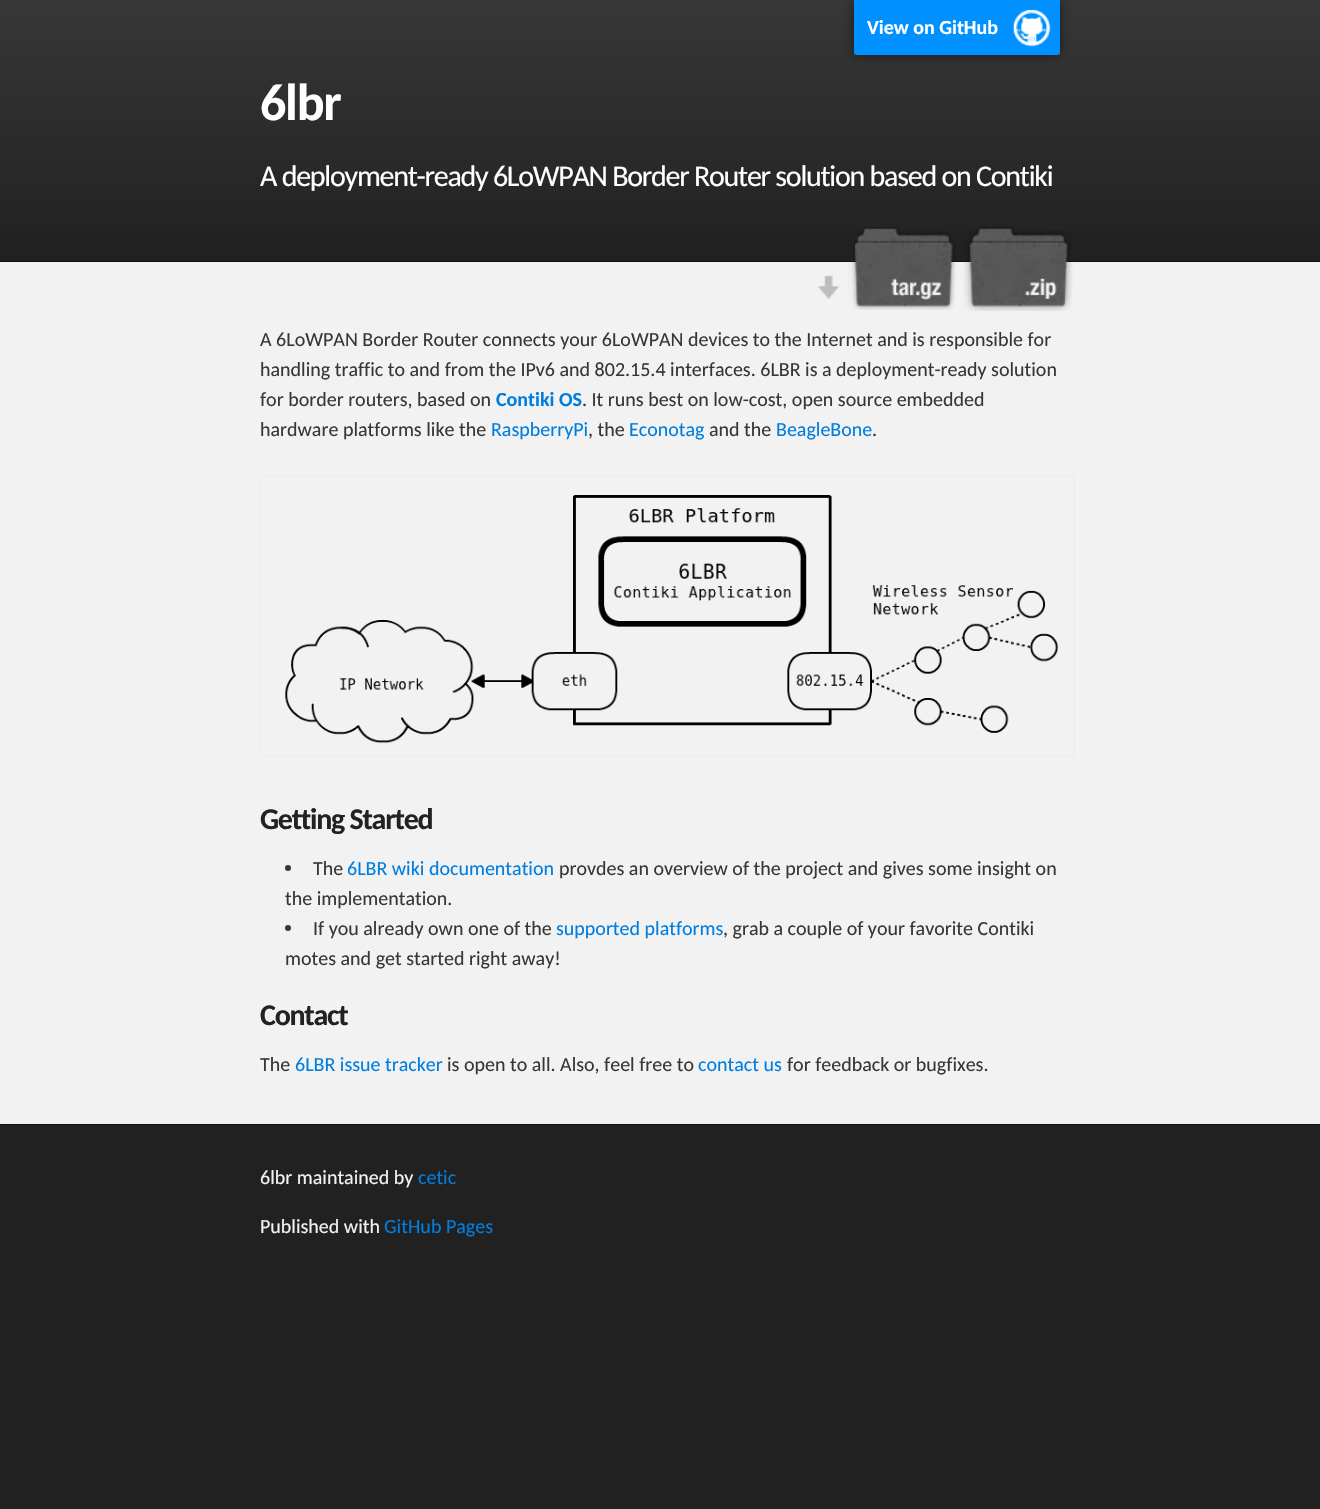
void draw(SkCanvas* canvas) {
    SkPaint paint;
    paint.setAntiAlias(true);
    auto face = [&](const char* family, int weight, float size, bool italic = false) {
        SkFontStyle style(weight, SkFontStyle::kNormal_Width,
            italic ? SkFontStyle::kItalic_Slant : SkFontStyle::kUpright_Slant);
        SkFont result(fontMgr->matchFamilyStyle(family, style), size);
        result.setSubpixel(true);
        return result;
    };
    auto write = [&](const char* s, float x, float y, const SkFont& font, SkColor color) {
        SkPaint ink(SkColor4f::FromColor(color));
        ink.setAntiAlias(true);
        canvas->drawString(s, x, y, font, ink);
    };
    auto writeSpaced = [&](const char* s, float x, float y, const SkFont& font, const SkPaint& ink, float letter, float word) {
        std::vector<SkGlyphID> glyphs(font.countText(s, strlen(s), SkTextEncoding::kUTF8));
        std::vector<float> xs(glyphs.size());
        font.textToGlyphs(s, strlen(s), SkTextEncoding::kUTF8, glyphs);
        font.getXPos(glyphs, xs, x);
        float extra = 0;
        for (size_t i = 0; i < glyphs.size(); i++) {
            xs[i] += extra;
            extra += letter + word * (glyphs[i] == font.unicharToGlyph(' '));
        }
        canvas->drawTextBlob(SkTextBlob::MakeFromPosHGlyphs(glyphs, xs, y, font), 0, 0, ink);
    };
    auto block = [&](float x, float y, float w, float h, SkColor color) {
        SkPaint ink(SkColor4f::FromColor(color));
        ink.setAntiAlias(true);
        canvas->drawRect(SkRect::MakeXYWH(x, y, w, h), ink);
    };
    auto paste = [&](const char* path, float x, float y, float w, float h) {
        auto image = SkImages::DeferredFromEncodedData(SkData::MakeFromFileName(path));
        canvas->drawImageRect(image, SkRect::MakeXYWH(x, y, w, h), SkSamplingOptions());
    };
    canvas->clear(SkColorSetRGB(33, 33, 33));
    {
        const SkColor colors[] = {SkColorSetRGB(55, 55, 55), SkColorSetRGB(33, 33, 33)};
        const float stops[] = {0, 1};
        const SkPoint ends[] = {{660, 0}, {660, 261}};
        paint.setShader(SkGradientShader::MakeLinear(ends, colors, stops, 2, SkTileMode::kClamp));
        paint.setAlpha(255);
    }
    canvas->drawRect(SkRect::MakeXYWH(0, 0, 1320, 231), paint);
    paint.setShader(nullptr);
    paint.setColor(SkColorSetARGB(128, 0, 0, 0));
    paint.setMaskFilter(SkMaskFilter::MakeBlur(kNormal_SkBlurStyle, 6));
    canvas->drawRoundRect(SkRect::MakeXYWH(854, 0, 206, 55), 2.5f, 2.5f, paint);
    paint.setMaskFilter(nullptr);
    paint.setColor(SkColorSetRGB(0, 144, 255));
    canvas->drawPath(SkPathBuilder().moveTo(854, 0).lineTo(1060, 0).lineTo(1060, 52.5f).cubicTo(1060, 54, 1059, 55, 1057.5f, 55).lineTo(856.5f, 55).cubicTo(855, 55, 854, 54, 854, 52.5f).close().detach(), paint);
    paste("pic1.png", 1013, 9, 38, 38);
    auto kFont1 = face("Carlito", 700, 20);
    write("View on GitHub", 867, 34, kFont1, SK_ColorWHITE);
    auto kFont2 = face("Carlito", 700, 52);
    paint.setColor(SK_ColorWHITE);
    writeSpaced("6lbr", 260, 120, kFont2, paint, -1.25f, 0);
    auto kFont3 = face("Carlito", 400, 30);
    writeSpaced("A deployment-ready 6LoWPAN Border Router solution based on Contiki", 260, 186, kFont3, paint, -1.25f, 0);
    block(0, 262, 1320, 862, SkColorSetRGB(242, 242, 242));
    paste("pic2.png", 818, 275, 21, 24);
    block(0, 261, 1320, 1, SkColorSetRGB(17, 17, 17));
    paste("pic3.png", 848, 227, 108, 83);
    paste("pic4.png", 963, 226, 110, 85);
    block(0, 1124, 1320, 1, SkColorSetRGB(17, 17, 17));
    auto kFont4 = face("Carlito", 400, 20);
    write("A 6LoWPAN Border Router connects your 6LoWPAN devices to the Internet and is responsible for", 260, 346, kFont4, SkColorSetRGB(55, 55, 55));
    write("handling traffic to and from the IPv6 and 802.15.4 interfaces. 6LBR is a deployment-ready solution", 260, 376, kFont4, SkColorSetRGB(55, 55, 55));
    write("for border routers, based on", 260, 406, kFont4, SkColorSetRGB(55, 55, 55));
    write("Contiki OS", 496, 406, kFont1, SkColorSetRGB(0, 126, 223));
    write(". It runs best on low-cost, open source embedded", 582, 406, kFont4, SkColorSetRGB(55, 55, 55));
    write("hardware platforms like the", 260, 436, kFont4, SkColorSetRGB(55, 55, 55));
    write("RaspberryPi", 491, 436, kFont4, SkColorSetRGB(0, 126, 223));
    write(", the", 588, 436, kFont4, SkColorSetRGB(55, 55, 55));
    write("Econotag", 629, 436, kFont4, SkColorSetRGB(0, 126, 223));
    write("and the", 709, 436, kFont4, SkColorSetRGB(55, 55, 55));
    write("BeagleBone", 776, 436, kFont4, SkColorSetRGB(0, 126, 223));
    write(".", 872, 436, kFont4, SkColorSetRGB(55, 55, 55));
    paint.setStyle(SkPaint::kStroke_Style);
    paint.setStrokeWidth(1);
    paint.setColor(SkColorSetRGB(235, 235, 235));
    canvas->drawRect(SkRect::MakeXYWH(260.5f, 476.5f, 814, 279), paint);
    paste("pic5.png", 285, 495, 774, 249);
    auto kFont5 = face("Carlito", 700, 30);
    paint.setStyle(SkPaint::kFill_Style);
    paint.setColor(SkColorSetRGB(34, 34, 34));
    writeSpaced("Getting Started", 260, 829, kFont5, paint, -1.25f, 0);
    paint.setColor(SkColorSetRGB(55, 55, 55));
    canvas->drawCircle(288, 868, 3, paint);
    write("The", 313, 875, kFont4, SkColorSetRGB(55, 55, 55));
    write("6LBR wiki documentation", 347, 875, kFont4, SkColorSetRGB(0, 126, 223));
    write("provdes an overview of the project and gives some insight on", 559, 875, kFont4, SkColorSetRGB(55, 55, 55));
    write("the implementation.", 285, 905, kFont4, SkColorSetRGB(55, 55, 55));
    canvas->drawCircle(288, 928, 3, paint);
    write("If you already own one of the", 313, 935, kFont4, SkColorSetRGB(55, 55, 55));
    write("supported platforms", 556, 935, kFont4, SkColorSetRGB(0, 126, 223));
    write(", grab a couple of your favorite Contiki", 723, 935, kFont4, SkColorSetRGB(55, 55, 55));
    write("motes and get started right away!", 285, 965, kFont4, SkColorSetRGB(55, 55, 55));
    paint.setColor(SkColorSetRGB(34, 34, 34));
    writeSpaced("Contact", 260, 1025, kFont5, paint, -1.25f, 0);
    write("The", 260, 1071, kFont4, SkColorSetRGB(55, 55, 55));
    write("6LBR issue tracker", 295, 1071, kFont4, SkColorSetRGB(0, 126, 223));
    write("is open to all. Also, feel free to", 447, 1071, kFont4, SkColorSetRGB(55, 55, 55));
    write("contact us", 698, 1071, kFont4, SkColorSetRGB(0, 126, 223));
    write("for feedback or bugfixes.", 787, 1071, kFont4, SkColorSetRGB(55, 55, 55));
    write("6lbr maintained by", 260, 1184, kFont4, SkColorSetRGB(242, 242, 242));
    write("cetic", 418, 1184, kFont4, SkColorSetRGB(0, 126, 223));
    write("Published with", 260, 1233, kFont4, SkColorSetRGB(242, 242, 242));
    write("GitHub Pages", 384, 1233, kFont4, SkColorSetRGB(0, 126, 223));
}
